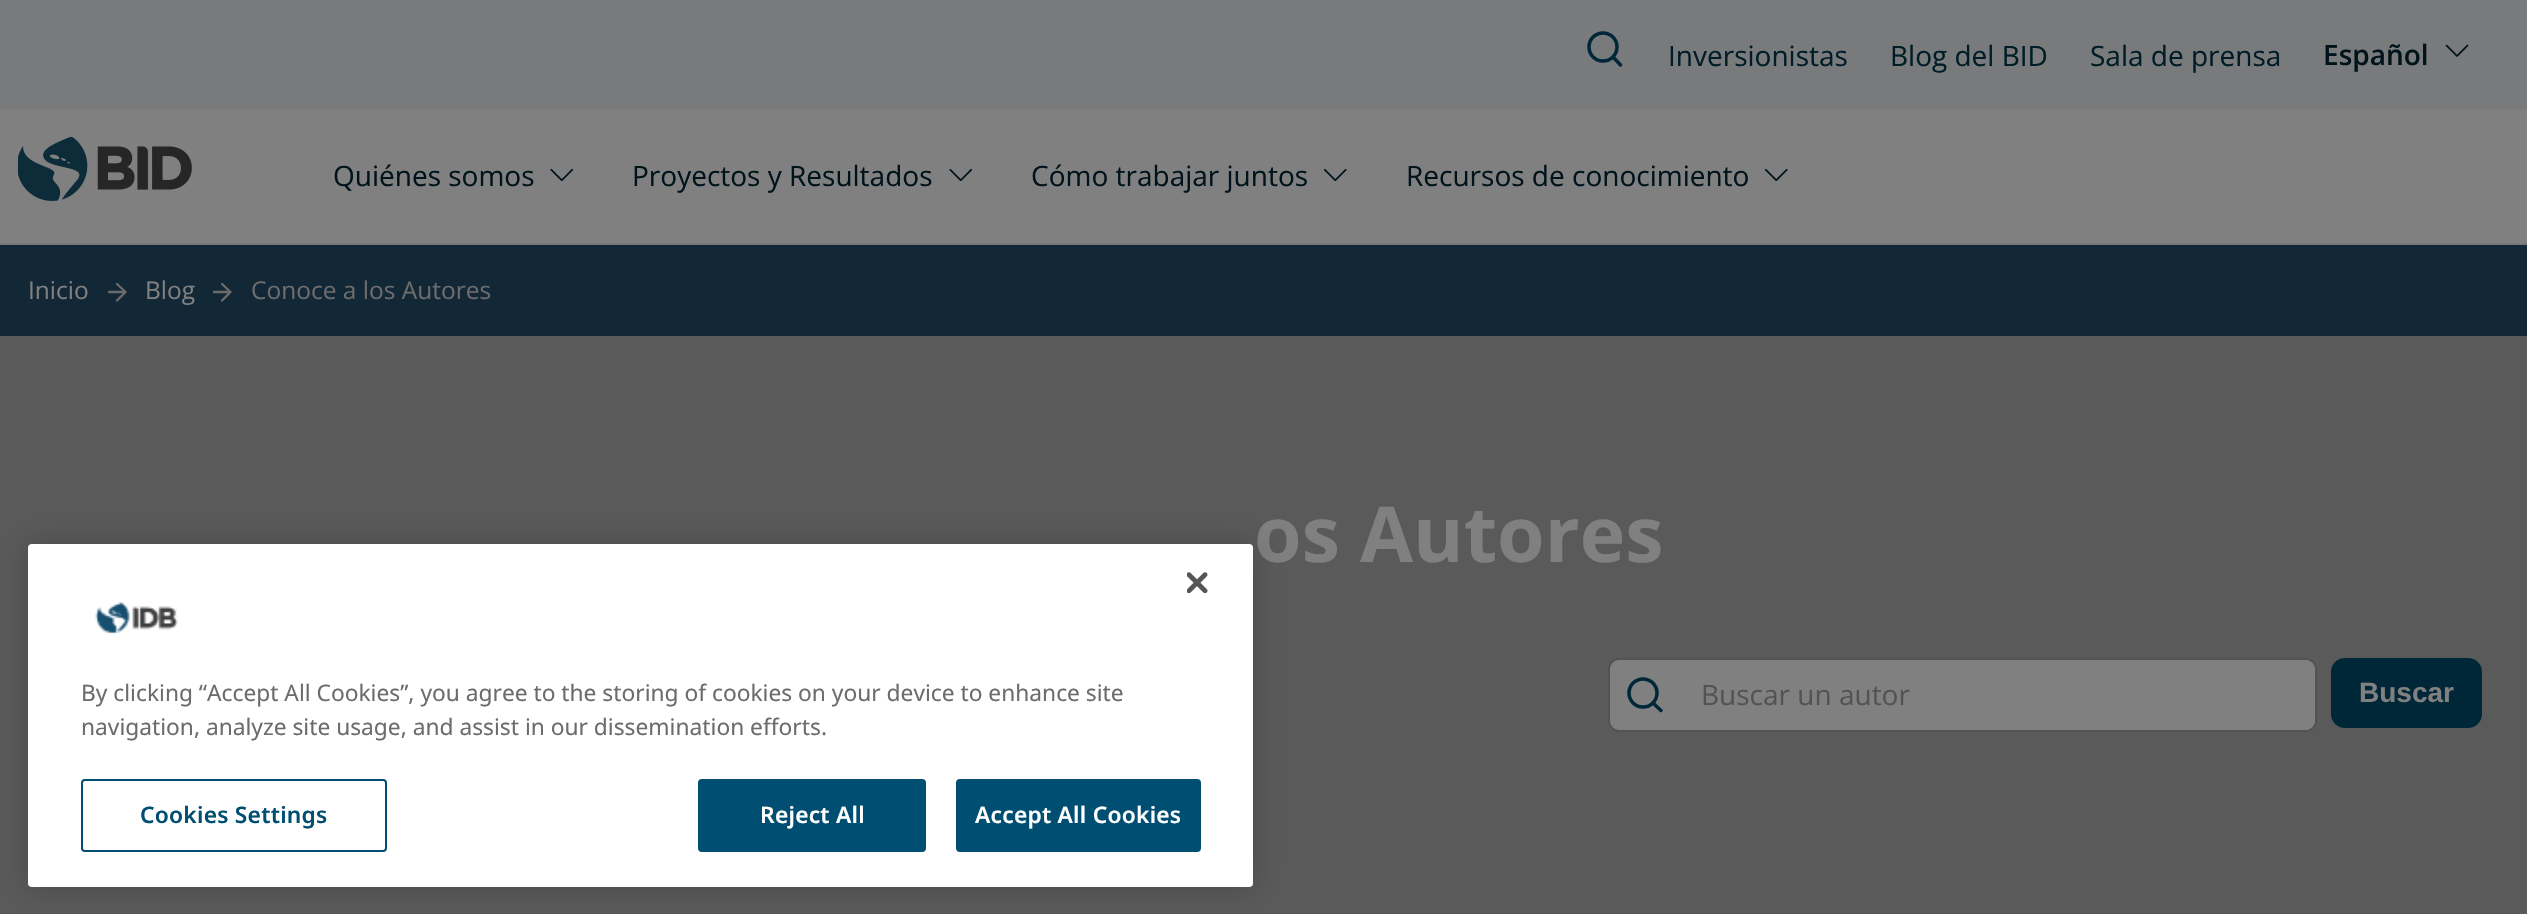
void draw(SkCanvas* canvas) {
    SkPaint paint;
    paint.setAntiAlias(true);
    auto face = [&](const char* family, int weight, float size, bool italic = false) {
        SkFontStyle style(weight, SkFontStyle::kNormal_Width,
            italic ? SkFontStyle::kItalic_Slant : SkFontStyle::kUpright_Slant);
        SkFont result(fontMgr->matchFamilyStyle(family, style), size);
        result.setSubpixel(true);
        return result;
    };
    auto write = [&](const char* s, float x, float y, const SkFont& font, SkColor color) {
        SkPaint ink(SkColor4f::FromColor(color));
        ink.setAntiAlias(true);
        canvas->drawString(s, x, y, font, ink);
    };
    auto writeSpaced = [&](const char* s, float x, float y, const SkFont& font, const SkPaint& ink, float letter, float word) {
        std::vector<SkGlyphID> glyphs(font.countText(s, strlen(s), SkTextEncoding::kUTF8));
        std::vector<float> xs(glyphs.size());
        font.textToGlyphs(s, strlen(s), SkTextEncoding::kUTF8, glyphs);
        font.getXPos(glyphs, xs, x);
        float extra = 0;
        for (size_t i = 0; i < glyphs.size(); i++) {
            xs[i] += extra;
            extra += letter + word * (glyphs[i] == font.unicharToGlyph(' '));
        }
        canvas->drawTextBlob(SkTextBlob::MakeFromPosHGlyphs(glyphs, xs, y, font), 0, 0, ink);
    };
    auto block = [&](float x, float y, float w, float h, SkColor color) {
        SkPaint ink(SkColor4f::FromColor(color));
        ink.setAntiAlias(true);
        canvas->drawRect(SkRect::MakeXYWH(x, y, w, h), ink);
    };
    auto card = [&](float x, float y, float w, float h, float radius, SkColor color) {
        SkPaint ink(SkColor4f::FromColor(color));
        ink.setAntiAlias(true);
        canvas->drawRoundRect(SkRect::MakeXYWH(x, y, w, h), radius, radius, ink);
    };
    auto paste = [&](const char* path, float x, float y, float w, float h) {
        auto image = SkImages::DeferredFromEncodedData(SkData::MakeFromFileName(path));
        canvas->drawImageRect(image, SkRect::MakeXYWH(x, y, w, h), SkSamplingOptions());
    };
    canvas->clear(SkColorSetRGB(128, 128, 128));
    block(0, 243, 2527, 2, SkColorSetRGB(119, 119, 119));
    block(0, 0, 2527, 109, SkColorSetRGB(120, 122, 123));
    paint.setStyle(SkPaint::kStroke_Style);
    paint.setStrokeWidth(3.5f);
    paint.setColor(SkColorSetRGB(0, 39, 56));
    canvas->drawCircle(1603, 47, 14, paint);
    paint.setStrokeCap(SkPaint::kRound_Cap);
    paint.setStrokeJoin(SkPaint::kRound_Join);
    canvas->drawPath(SkPathBuilder().moveTo(1620.5f, 65).lineTo(1613, 57).detach(), paint);
    auto kFont1 = face("Open Sans", 400, 28);
    write("Inversionistas", 1668, 66, kFont1, SkColorSetRGB(0, 28, 39));
    write("Blog del BID", 1890, 66, kFont1, SkColorSetRGB(0, 28, 39));
    write("Sala de prensa", 2090, 66, kFont1, SkColorSetRGB(0, 28, 39));
    auto kFont2 = face("Open Sans", 600, 28);
    write("Español", 2323, 65, kFont2, SkColorSetRGB(0, 19, 27));
    paste("pic1.png", 2445, 44, 24, 13);
    paste("pic2.png", 18, 137, 174, 64);
    write("Quiénes somos", 333, 186, kFont1, SkColorSetRGB(0, 19, 27));
    paste("pic3.png", 550, 168, 24, 14);
    write("Proyectos y Resultados", 632, 186, kFont1, SkColorSetRGB(0, 19, 27));
    paste("pic3.png", 949, 168, 24, 14);
    write("Cómo trabajar juntos", 1031, 186, kFont1, SkColorSetRGB(0, 19, 27));
    paste("pic4.png", 1323, 168, 24, 14);
    write("Recursos de conocimiento", 1406, 186, kFont1, SkColorSetRGB(0, 19, 27));
    paste("pic4.png", 1764, 168, 24, 14);
    block(0, 245, 2527, 91, SkColorSetRGB(18, 40, 54));
    auto kFont3 = face("Open Sans", 400, 24.5f);
    write("Inicio", 28, 299, kFont3, SkColorSetRGB(128, 128, 128));
    paint.setStrokeWidth(2.3f);
    paint.setColor(SkColorSetRGB(108, 108, 108));
    canvas->drawPath(SkPathBuilder().moveTo(109, 292).lineTo(125.5f, 292).moveTo(117, 284).lineTo(125.5f, 292).lineTo(117, 300.5f).detach(), paint);
    write("Blog", 145, 299, kFont3, SkColorSetRGB(128, 128, 128));
    canvas->drawPath(SkPathBuilder().moveTo(214, 292).lineTo(230.5f, 292).moveTo(222, 284).lineTo(230.5f, 292).lineTo(222, 300.5f).detach(), paint);
    write("Conoce a los Autores", 251, 299, kFont3, SkColorSetRGB(108, 108, 108));
    block(0, 336, 2527, 578, SkColorSetRGB(90, 90, 90));
    auto kFont4 = face("Open Sans", 700, 77);
    write("os Autores", 1254, 562, kFont4, SkColorSetRGB(128, 128, 128));
    paint.setStyle(SkPaint::kFill_Style);
    paint.setColor(SkColorSetRGB(128, 128, 128));
    canvas->drawRoundRect(SkRect::MakeXYWH(1609, 659, 707, 72), 10, 10, paint);
    paint.setStyle(SkPaint::kStroke_Style);
    paint.setStrokeWidth(2);
    paint.setStrokeCap(SkPaint::kButt_Cap);
    paint.setStrokeJoin(SkPaint::kMiter_Join);
    paint.setColor(SkColorSetRGB(83, 83, 84));
    canvas->drawRoundRect(SkRect::MakeXYWH(1609, 659, 707, 72), 10, 10, paint);
    paint.setStrokeWidth(3.5f);
    paint.setColor(SkColorSetRGB(0, 39, 56));
    canvas->drawCircle(1643, 693, 14, paint);
    paint.setStrokeCap(SkPaint::kRound_Cap);
    paint.setStrokeJoin(SkPaint::kRound_Join);
    canvas->drawPath(SkPathBuilder().moveTo(1661, 710.5f).lineTo(1653, 703).detach(), paint);
    card(1680, 660, 635, 70, 11, SkColorSetRGB(128, 128, 128));
    write("Buscar un autor", 1701, 705, kFont1, SkColorSetRGB(83, 83, 84));
    card(2331, 658, 151, 70, 14, SkColorSetRGB(0, 39, 56));
    auto kFont5 = face("Liberation Sans", 700, 28);
    write("Buscar", 2359, 702, kFont5, SkColorSetRGB(128, 128, 128));
    paint.setStyle(SkPaint::kFill_Style);
    paint.setColor(SkColorSetARGB(51, 0, 0, 0));
    paint.setMaskFilter(SkMaskFilter::MakeBlur(kNormal_SkBlurStyle, 16));
    canvas->drawRoundRect(SkRect::MakeXYWH(28, 544, 1225, 343), 4, 4, paint);
    paint.setMaskFilter(nullptr);
    card(28, 544, 1225, 343, 4, SK_ColorWHITE);
    paste("pic5.png", 1187, 572, 21, 21);
    auto kFont6 = face("Noto Sans", 400, 22.75f);
    write("By clicking “Accept All Cookies”, you agree to the storing of cookies on your device to enhance site", 81, 701, kFont6, SkColorSetRGB(108, 108, 108));
    write("navigation, analyze site usage, and assist in our dissemination efforts.", 81, 735, kFont6, SkColorSetRGB(108, 108, 108));
    paste("pic6.png", 95, 602, 83, 32);
    paint.setStyle(SkPaint::kStroke_Style);
    paint.setStrokeWidth(2);
    paint.setStrokeCap(SkPaint::kButt_Cap);
    paint.setStrokeJoin(SkPaint::kMiter_Join);
    paint.setColor(SkColorSetRGB(0, 78, 114));
    canvas->drawRoundRect(SkRect::MakeXYWH(82, 780, 304, 71), 3, 3, paint);
    auto kFont7 = face("Noto Sans", 600, 22.75f);
    paint.setStyle(SkPaint::kFill_Style);
    writeSpaced("Cookies Settings", 140, 823, kFont7, paint, 0.25f, 0);
    canvas->drawRoundRect(SkRect::MakeXYWH(699, 780, 226, 71), 3, 3, paint);
    paint.setStyle(SkPaint::kStroke_Style);
    canvas->drawRoundRect(SkRect::MakeXYWH(699, 780, 226, 71), 3, 3, paint);
    paint.setStyle(SkPaint::kFill_Style);
    paint.setColor(SK_ColorWHITE);
    writeSpaced("Reject All", 760, 823, kFont7, paint, 0.25f, 0);
    paint.setColor(SkColorSetRGB(0, 78, 114));
    canvas->drawRoundRect(SkRect::MakeXYWH(957, 780, 243, 71), 3, 3, paint);
    paint.setStyle(SkPaint::kStroke_Style);
    canvas->drawRoundRect(SkRect::MakeXYWH(957, 780, 243, 71), 3, 3, paint);
    paint.setStyle(SkPaint::kFill_Style);
    paint.setColor(SK_ColorWHITE);
    writeSpaced("Accept All Cookies", 975, 823, kFont7, paint, 0.25f, 0);
}
